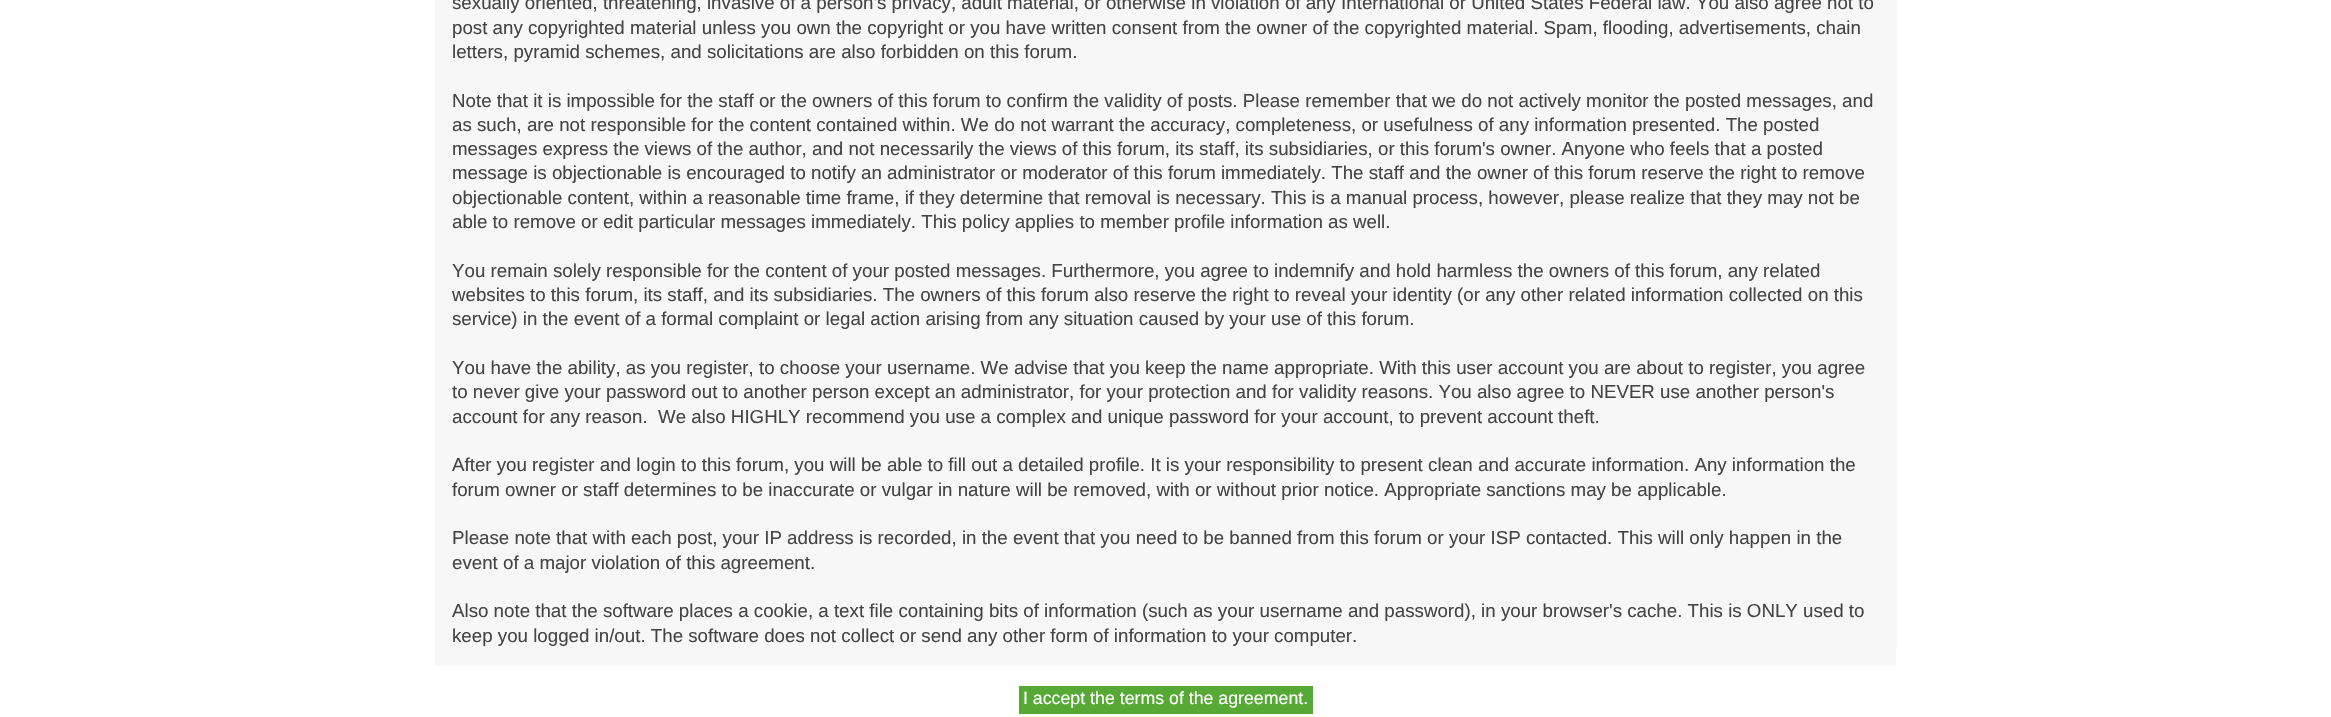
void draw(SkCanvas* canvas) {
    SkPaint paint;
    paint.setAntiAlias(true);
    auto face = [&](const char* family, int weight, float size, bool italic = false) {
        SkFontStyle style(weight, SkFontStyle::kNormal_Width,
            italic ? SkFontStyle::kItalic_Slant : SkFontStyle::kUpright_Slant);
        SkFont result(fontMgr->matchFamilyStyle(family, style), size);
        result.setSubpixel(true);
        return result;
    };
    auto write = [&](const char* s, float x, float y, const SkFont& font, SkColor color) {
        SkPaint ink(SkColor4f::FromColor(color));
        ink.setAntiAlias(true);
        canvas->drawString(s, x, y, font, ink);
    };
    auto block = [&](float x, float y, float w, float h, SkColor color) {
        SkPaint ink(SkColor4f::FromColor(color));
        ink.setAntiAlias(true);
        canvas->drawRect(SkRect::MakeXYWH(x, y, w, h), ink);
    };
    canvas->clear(SK_ColorWHITE);
    block(435, 0, 1462, 648, SkColorSetRGB(247, 247, 247));
    auto kFont1 = face("Liberation Sans", 400, 18.72f);
    write("sexually oriented, threatening, invasive of a person's privacy, adult material, or otherwise in violation of any International or United States Federal law. You also agree not to", 452, 9, kFont1, SkColorSetRGB(68, 68, 68));
    write("post any copyrighted material unless you own the copyright or you have written consent from the owner of the copyrighted material. Spam, flooding, advertisements, chain", 452, 34, kFont1, SkColorSetRGB(68, 68, 68));
    write("letters, pyramid schemes, and solicitations are also forbidden on this forum.", 452, 58, kFont1, SkColorSetRGB(68, 68, 68));
    write("Note that it is impossible for the staff or the owners of this forum to confirm the validity of posts. Please remember that we do not actively monitor the posted messages, and", 452, 107, kFont1, SkColorSetRGB(68, 68, 68));
    write("as such, are not responsible for the content contained within. We do not warrant the accuracy, completeness, or usefulness of any information presented. The posted", 452, 131, kFont1, SkColorSetRGB(68, 68, 68));
    write("messages express the views of the author, and not necessarily the views of this forum, its staff, its subsidiaries, or this forum's owner. Anyone who feels that a posted", 452, 155, kFont1, SkColorSetRGB(68, 68, 68));
    write("message is objectionable is encouraged to notify an administrator or moderator of this forum immediately. The staff and the owner of this forum reserve the right to remove", 452, 179, kFont1, SkColorSetRGB(68, 68, 68));
    write("objectionable content, within a reasonable time frame, if they determine that removal is necessary. This is a manual process, however, please realize that they may not be", 452, 204, kFont1, SkColorSetRGB(68, 68, 68));
    write("able to remove or edit particular messages immediately. This policy applies to member profile information as well.", 452, 228, kFont1, SkColorSetRGB(68, 68, 68));
    write("You remain solely responsible for the content of your posted messages. Furthermore, you agree to indemnify and hold harmless the owners of this forum, any related", 452, 277, kFont1, SkColorSetRGB(68, 68, 68));
    write("websites to this forum, its staff, and its subsidiaries. The owners of this forum also reserve the right to reveal your identity (or any other related information collected on this", 452, 301, kFont1, SkColorSetRGB(68, 68, 68));
    write("service) in the event of a formal complaint or legal action arising from any situation caused by your use of this forum.", 452, 325, kFont1, SkColorSetRGB(68, 68, 68));
    write("You have the ability, as you register, to choose your username. We advise that you keep the name appropriate. With this user account you are about to register, you agree", 452, 374, kFont1, SkColorSetRGB(68, 68, 68));
    write("to never give your password out to another person except an administrator, for your protection and for validity reasons. You also agree to NEVER use another person's", 452, 398, kFont1, SkColorSetRGB(68, 68, 68));
    write("account for any reason.  We also HIGHLY recommend you use a complex and unique password for your account, to prevent account theft.", 452, 423, kFont1, SkColorSetRGB(68, 68, 68));
    write("After you register and login to this forum, you will be able to fill out a detailed profile. It is your responsibility to present clean and accurate information. Any information the", 452, 471, kFont1, SkColorSetRGB(68, 68, 68));
    write("forum owner or staff determines to be inaccurate or vulgar in nature will be removed, with or without prior notice. Appropriate sanctions may be applicable.", 452, 496, kFont1, SkColorSetRGB(68, 68, 68));
    write("Please note that with each post, your IP address is recorded, in the event that you need to be banned from this forum or your ISP contacted. This will only happen in the", 452, 544, kFont1, SkColorSetRGB(68, 68, 68));
    write("event of a major violation of this agreement.", 452, 569, kFont1, SkColorSetRGB(68, 68, 68));
    write("Also note that the software places a cookie, a text file containing bits of information (such as your username and password), in your browser's cache. This is ONLY used to", 452, 617, kFont1, SkColorSetRGB(68, 68, 68));
    write("keep you logged in/out. The software does not collect or send any other form of information to your computer.", 452, 642, kFont1, SkColorSetRGB(68, 68, 68));
    block(435, 648, 1461, 18, SkColorSetRGB(247, 247, 247));
    block(1019, 686, 294, 28, SkColorSetRGB(87, 169, 53));
    auto kFont2 = face("Liberation Sans", 400, 17.75f);
    write("I accept the terms of the agreement.", 1023, 704, kFont2, SK_ColorWHITE);
}
